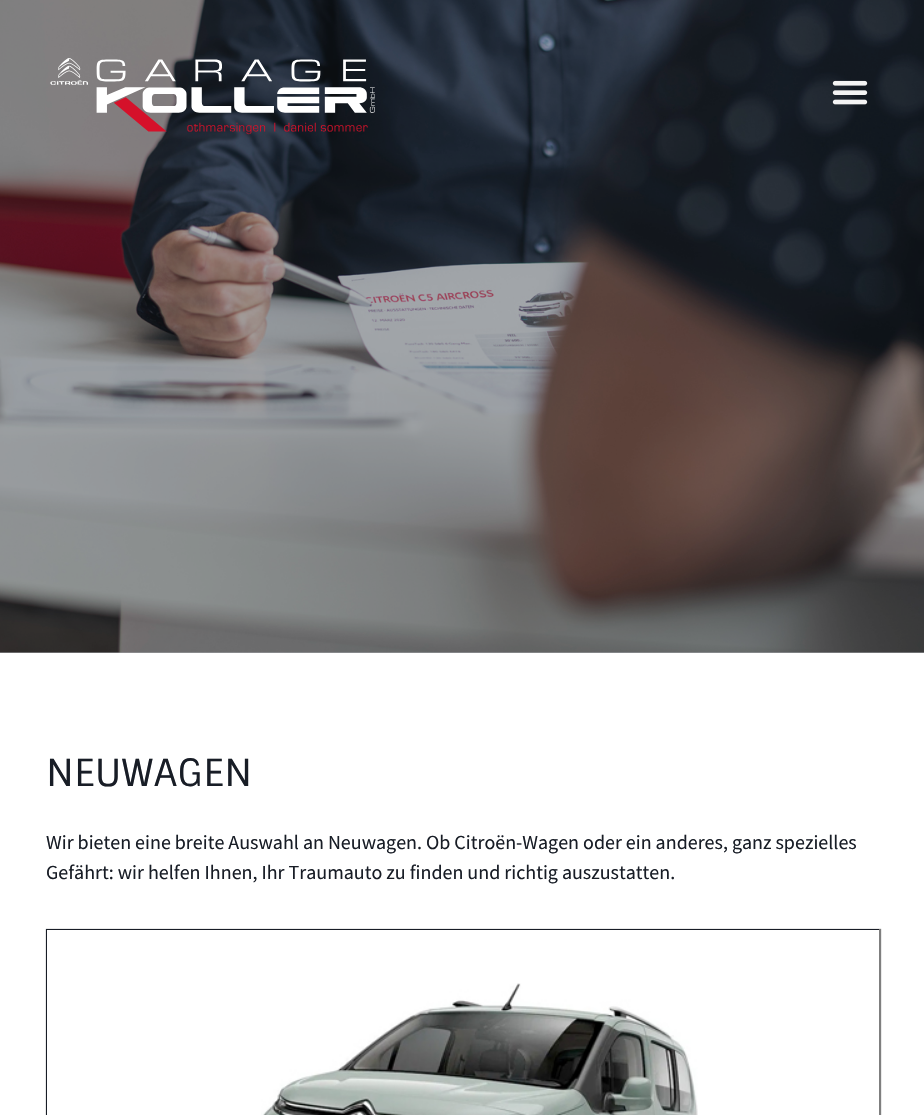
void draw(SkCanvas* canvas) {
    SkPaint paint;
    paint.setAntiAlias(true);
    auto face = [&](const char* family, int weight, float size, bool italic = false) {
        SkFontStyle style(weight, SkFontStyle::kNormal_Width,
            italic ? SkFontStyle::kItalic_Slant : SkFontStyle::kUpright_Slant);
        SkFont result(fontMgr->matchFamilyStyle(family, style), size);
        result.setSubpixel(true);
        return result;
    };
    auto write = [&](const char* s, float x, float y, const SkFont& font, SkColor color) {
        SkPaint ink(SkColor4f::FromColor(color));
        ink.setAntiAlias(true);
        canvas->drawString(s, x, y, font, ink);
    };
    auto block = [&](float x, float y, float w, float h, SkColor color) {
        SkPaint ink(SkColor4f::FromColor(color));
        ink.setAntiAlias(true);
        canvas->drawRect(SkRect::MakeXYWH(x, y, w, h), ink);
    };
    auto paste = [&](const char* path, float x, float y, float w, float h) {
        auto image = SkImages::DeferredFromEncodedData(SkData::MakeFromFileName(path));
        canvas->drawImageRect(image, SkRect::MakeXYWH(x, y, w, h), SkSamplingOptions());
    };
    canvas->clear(SK_ColorWHITE);
    block(0, 652, 924, 1, SkColorSetRGB(164, 167, 170));
    paste("pic3.png", 0, 0, 924, 653);
    paste("pic1.png", 50, 58, 325, 77);
    paste("pic2.png", 832, 80, 36, 25);
    auto kFont1 = face("Sintony", 400, 37.5f);
    write("NEUWAGEN", 46, 786, kFont1, SkColorSetRGB(24, 29, 38));
    auto kFont2 = face("Source Sans Pro", 400, 20);
    write("Wir bieten eine breite Auswahl an Neuwagen. Ob Citroën-Wagen oder ein anderes, ganz spezielles", 46, 849, kFont2, SkColorSetRGB(24, 29, 38));
    write("Gefährt: wir helfen Ihnen, Ihr Traumauto zu finden und richtig auszustatten.", 46, 879, kFont2, SkColorSetRGB(24, 29, 38));
    canvas->save();
    canvas->clipPath(SkPathBuilder(SkPathFillType::kEvenOdd).moveTo(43, 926).lineTo(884, 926).lineTo(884, 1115).lineTo(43, 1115).close().moveTo(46, 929).lineTo(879, 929).lineTo(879, 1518).lineTo(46, 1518).close().detach(), true);
    paint.setColor(SkColorSetARGB(128, 0, 0, 0));
    paint.setMaskFilter(SkMaskFilter::MakeBlur(kNormal_SkBlurStyle, 0.5f));
    canvas->drawRect(SkRect::MakeXYWH(46, 929, 835, 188), paint);
    paint.setMaskFilter(nullptr);
    canvas->restore();
    block(46, 929, 833, 1, SkColorSetRGB(24, 29, 38));
    block(46, 929, 1, 186, SkColorSetRGB(24, 29, 38));
    paste("pic4.png", 261, 983, 437, 132);
}
